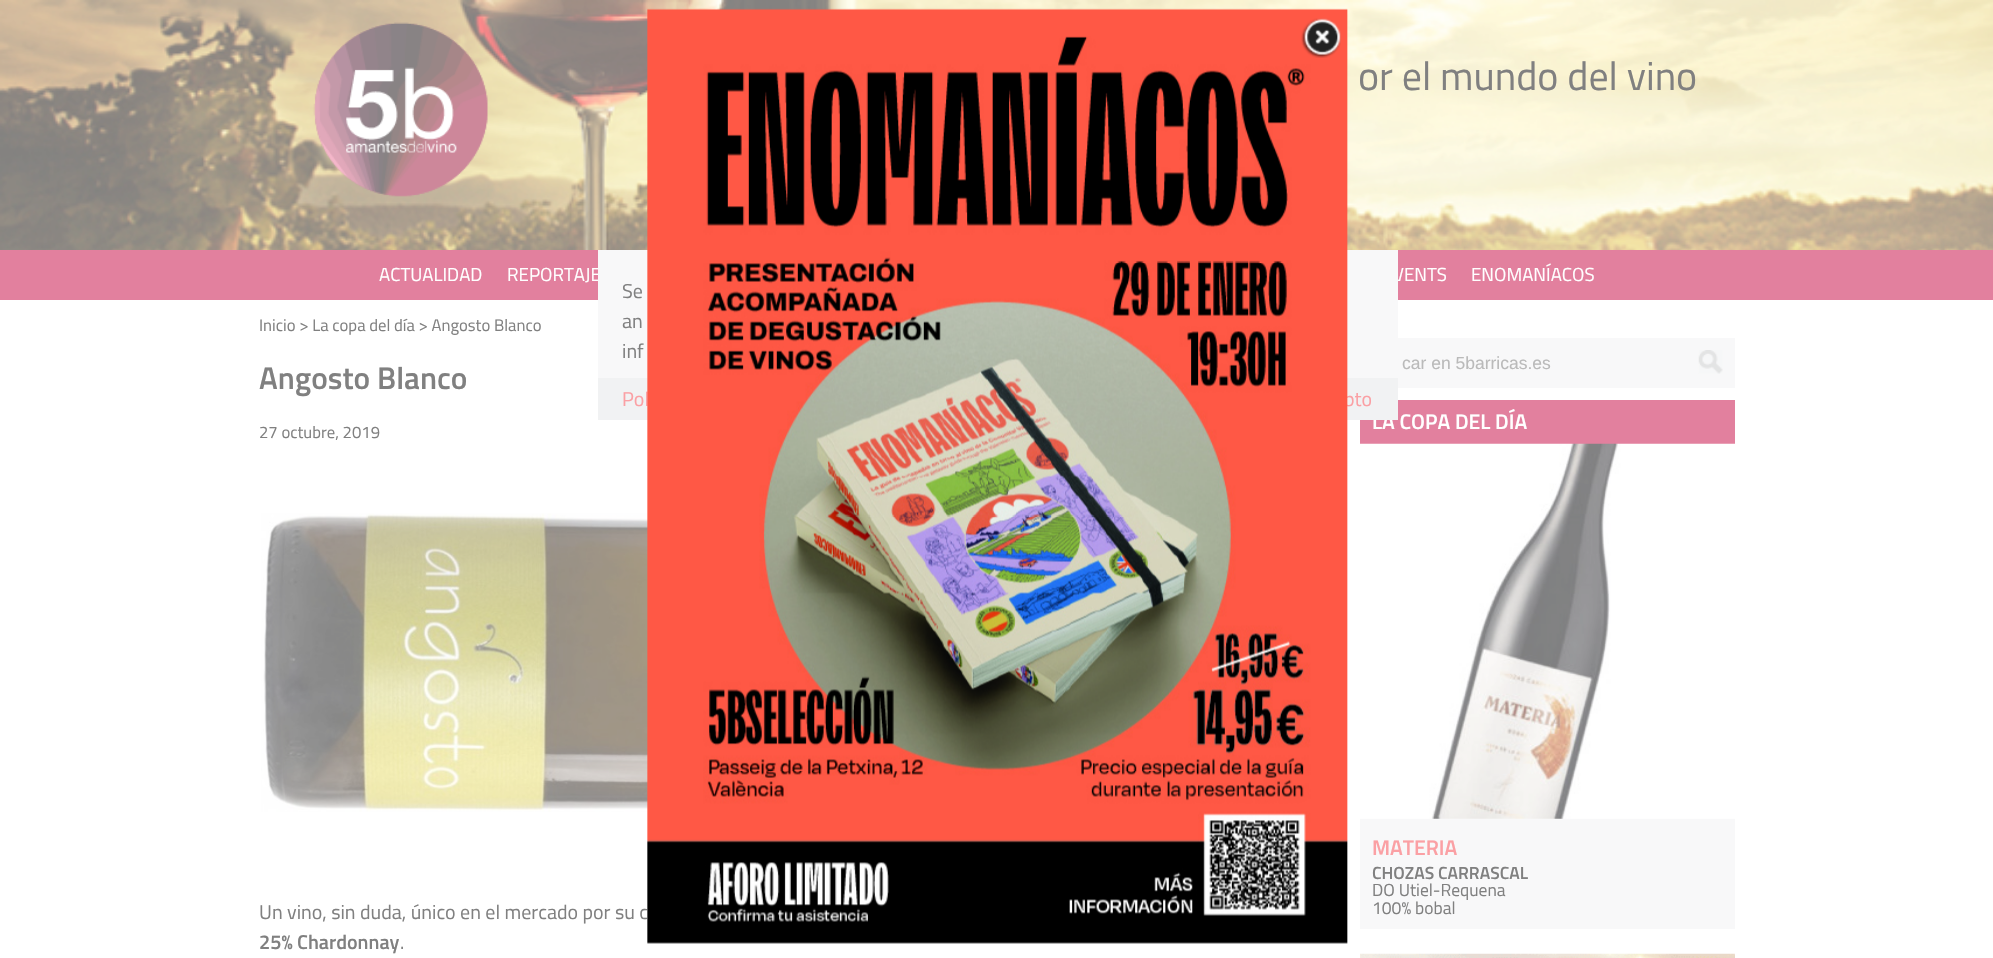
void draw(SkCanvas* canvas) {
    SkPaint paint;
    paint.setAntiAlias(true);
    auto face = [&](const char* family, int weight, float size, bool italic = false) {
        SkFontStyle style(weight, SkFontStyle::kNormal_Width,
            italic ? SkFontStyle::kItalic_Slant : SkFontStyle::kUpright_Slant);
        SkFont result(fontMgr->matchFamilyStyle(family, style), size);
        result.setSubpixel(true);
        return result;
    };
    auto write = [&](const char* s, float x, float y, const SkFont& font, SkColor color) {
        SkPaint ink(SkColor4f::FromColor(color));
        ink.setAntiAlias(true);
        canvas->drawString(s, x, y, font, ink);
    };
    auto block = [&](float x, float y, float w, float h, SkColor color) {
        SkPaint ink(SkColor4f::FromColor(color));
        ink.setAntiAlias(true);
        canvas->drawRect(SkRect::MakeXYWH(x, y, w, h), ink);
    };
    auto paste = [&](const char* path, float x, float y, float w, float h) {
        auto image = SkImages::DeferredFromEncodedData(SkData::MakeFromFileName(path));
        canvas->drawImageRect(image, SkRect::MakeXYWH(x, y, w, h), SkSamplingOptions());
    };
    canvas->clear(SK_ColorWHITE);
    paste("pic3.png", 0, 0, 1993, 250);
    block(0, 250, 1993, 50, SkColorSetRGB(226, 128, 158));
    auto kFont1 = face("Titillium Web", 400, 18.75f);
    write("REPORTAJE", 507, 281, kFont1, SK_ColorWHITE);
    write("VENTS", 1393, 281, kFont1, SK_ColorWHITE);
    block(598, 250, 800, 128, SkColorSetRGB(248, 248, 249));
    block(1360, 400, 375, 44, SkColorSetRGB(226, 128, 158));
    auto kFont2 = face("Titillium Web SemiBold", 600, 21.25f);
    write("LA COPA DEL DÍA", 1372, 429, kFont2, SK_ColorWHITE);
    block(598, 378, 800, 42, SkColorSetRGB(241, 242, 243));
    auto kFont3 = face("Titillium Web", 400, 20);
    write("Pol", 622, 406, kFont3, SkColorSetRGB(251, 160, 164));
    write("pto", 1344, 406, kFont3, SkColorSetRGB(251, 160, 164));
    paste("pic5.png", 261, 513, 387, 299);
    write("Un vino, sin duda, único en el mercado por su c", 259, 919, kFont3, SkColorSetRGB(128, 128, 128));
    paste("pic1.png", 647, 8, 701, 936);
    paste("pic2.png", 1301, 18, 40, 40);
    paste("pic4.png", 313, 22, 175, 175);
    auto kFont4 = face("Titillium Web", 400, 40);
    write("or el mundo del vino", 1358, 90, kFont4, SkColorSetRGB(128, 128, 128));
    write("ACTUALIDAD", 379, 281, kFont1, SK_ColorWHITE);
    write("ENOMANÍACOS", 1471, 281, kFont1, SK_ColorWHITE);
    write("Se", 622, 298, kFont3, SkColorSetRGB(128, 128, 128));
    write("an", 622, 328, kFont3, SkColorSetRGB(128, 128, 128));
    write("inf", 622, 358, kFont3, SkColorSetRGB(128, 128, 128));
    auto kFont5 = face("Titillium Web", 400, 16.7f);
    write("Inicio > La copa del día > Angosto Blanco", 259, 331, kFont5, SkColorSetRGB(128, 128, 128));
    auto kFont6 = face("Titillium Web SemiBold", 600, 31.25f);
    write("Angosto Blanco", 259, 389, kFont6, SkColorSetRGB(128, 128, 128));
    write("27 octubre, 2019", 259, 438, kFont5, SkColorSetRGB(128, 128, 128));
    auto kFont7 = face("Titillium Web SemiBold", 600, 20);
    write("25% Chardonnay", 259, 949, kFont7, SkColorSetRGB(128, 128, 128));
    write(".", 400, 949, kFont3, SkColorSetRGB(128, 128, 128));
    block(1398, 338, 337, 50, SkColorSetRGB(248, 248, 249));
    auto kFont8 = face("Liberation Sans", 400, 17.5f);
    write("car en 5barricas.es", 1402, 369, kFont8, SkColorSetRGB(186, 186, 186));
    paste("pic6.png", 1698, 350, 25, 24);
    block(1360, 818, 375, 111, SkColorSetRGB(248, 248, 249));
    paste("pic7.png", 1360, 443, 375, 376);
    write("MATERIA", 1372, 855, kFont2, SkColorSetRGB(251, 160, 164));
    auto kFont9 = face("Titillium Web SemiBold", 600, 17.5f);
    write("CHOZAS CARRASCAL", 1372, 879, kFont9, SkColorSetRGB(128, 128, 128));
    auto kFont10 = face("Titillium Web", 400, 17.5f);
    write("DO Utiel-Requena", 1372, 896, kFont10, SkColorSetRGB(128, 128, 128));
    write("100% bobal", 1372, 914, kFont10, SkColorSetRGB(128, 128, 128));
    paste("pic8.png", 1360, 953, 375, 5);
}
